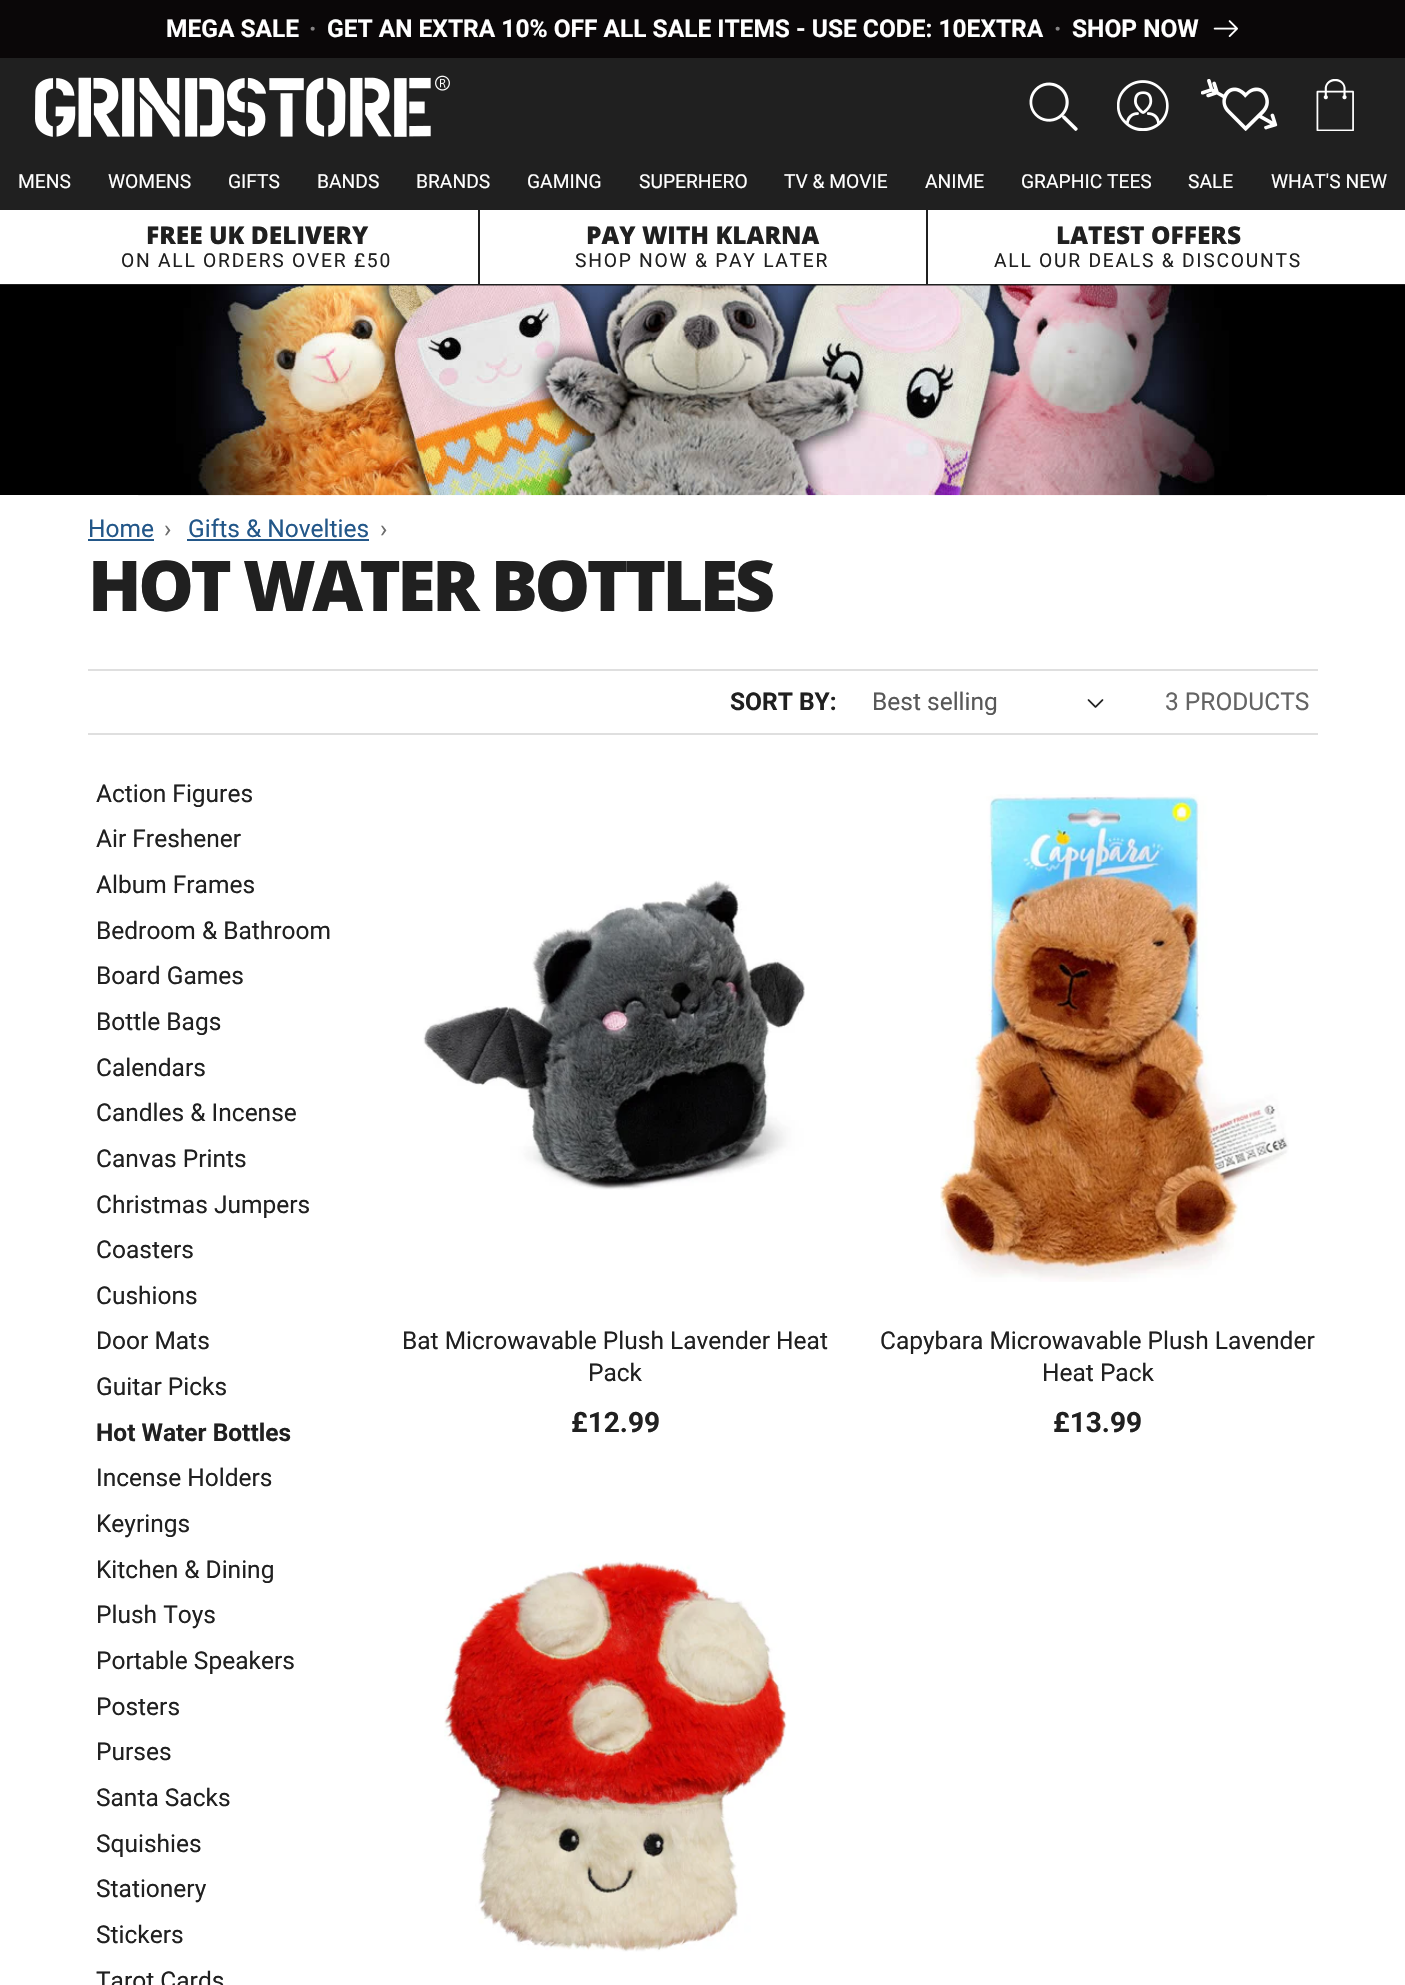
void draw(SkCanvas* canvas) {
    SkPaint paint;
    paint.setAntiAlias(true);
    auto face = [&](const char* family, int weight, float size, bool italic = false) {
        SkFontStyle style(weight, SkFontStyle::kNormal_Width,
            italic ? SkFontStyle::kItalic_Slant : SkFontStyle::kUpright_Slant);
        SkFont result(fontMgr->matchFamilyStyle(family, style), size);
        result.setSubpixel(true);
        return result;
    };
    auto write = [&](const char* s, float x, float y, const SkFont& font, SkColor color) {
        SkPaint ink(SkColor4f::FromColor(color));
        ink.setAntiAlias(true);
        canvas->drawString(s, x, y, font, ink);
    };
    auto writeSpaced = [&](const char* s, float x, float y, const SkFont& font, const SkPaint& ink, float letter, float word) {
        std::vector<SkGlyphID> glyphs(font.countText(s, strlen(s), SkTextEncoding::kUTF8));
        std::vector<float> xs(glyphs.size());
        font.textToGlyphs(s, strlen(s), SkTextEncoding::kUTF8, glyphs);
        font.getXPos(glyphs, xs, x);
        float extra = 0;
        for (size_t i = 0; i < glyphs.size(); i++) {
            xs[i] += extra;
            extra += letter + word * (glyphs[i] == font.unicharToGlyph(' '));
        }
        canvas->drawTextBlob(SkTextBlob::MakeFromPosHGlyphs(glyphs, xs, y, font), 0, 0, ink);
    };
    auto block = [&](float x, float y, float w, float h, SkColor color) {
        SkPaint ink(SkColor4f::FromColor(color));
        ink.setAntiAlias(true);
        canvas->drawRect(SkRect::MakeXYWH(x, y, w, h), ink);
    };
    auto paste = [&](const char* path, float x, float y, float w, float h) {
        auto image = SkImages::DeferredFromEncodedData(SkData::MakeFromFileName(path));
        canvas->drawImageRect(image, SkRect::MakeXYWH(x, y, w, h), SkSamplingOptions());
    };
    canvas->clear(SK_ColorWHITE);
    block(0, 0, 1405, 58, SkColorSetRGB(10, 7, 8));
    auto kFont1 = face("Roboto", 700, 24.5f);
    write("MEGA SALE", 166, 37, kFont1, SK_ColorWHITE);
    write("·", 309, 37, kFont1, SkColorSetRGB(133, 131, 132));
    write("GET AN EXTRA 10% OFF ALL SALE ITEMS - USE CODE: 10EXTRA", 327, 37, kFont1, SK_ColorWHITE);
    write("·", 1054, 37, kFont1, SkColorSetRGB(133, 131, 132));
    write("SHOP NOW", 1072, 37, kFont1, SK_ColorWHITE);
    paste("pic1.png", 1213, 20, 25, 17);
    block(0, 58, 1405, 152, SkColorSetRGB(32, 32, 32));
    paste("pic2.png", 35, 75, 415, 62);
    paste("pic3.png", 1029, 82, 49, 49);
    paste("pic4.png", 1117, 80, 52, 51);
    paste("pic5.png", 1201, 79, 77, 52);
    paste("pic6.png", 1316, 79, 38, 52);
    auto kFont2 = face("Roboto", 400, 19.25f);
    write("MENS", 18, 188, kFont2, SK_ColorWHITE);
    write("WOMENS", 108, 188, kFont2, SK_ColorWHITE);
    write("GIFTS", 228, 188, kFont2, SK_ColorWHITE);
    write("BANDS", 317, 188, kFont2, SK_ColorWHITE);
    write("BRANDS", 416, 188, kFont2, SK_ColorWHITE);
    write("GAMING", 527, 188, kFont2, SK_ColorWHITE);
    write("SUPERHERO", 639, 188, kFont2, SK_ColorWHITE);
    write("TV & MOVIE", 784, 188, kFont2, SK_ColorWHITE);
    write("ANIME", 925, 188, kFont2, SK_ColorWHITE);
    write("GRAPHIC TEES", 1021, 188, kFont2, SK_ColorWHITE);
    write("SALE", 1188, 188, kFont2, SK_ColorWHITE);
    write("WHAT'S NEW", 1271, 188, kFont2, SK_ColorWHITE);
    block(0, 284, 1405, 1, SkColorSetRGB(32, 32, 32));
    block(478, 210, 2, 74, SkColorSetRGB(32, 32, 32));
    auto kFont3 = face("Open Sans", 800, 24.5f);
    write("FREE UK DELIVERY", 146, 244, kFont3, SkColorSetRGB(32, 32, 32));
    paint.setColor(SkColorSetRGB(32, 32, 32));
    writeSpaced("ON ALL ORDERS OVER £50", 121, 267, kFont2, paint, 1.75f, 0);
    write("PAY WITH KLARNA", 586, 244, kFont3, SkColorSetRGB(32, 32, 32));
    writeSpaced("SHOP NOW & PAY LATER", 575, 267, kFont2, paint, 1.75f, 0);
    block(926, 210, 2, 74, SkColorSetRGB(32, 32, 32));
    write("LATEST OFFERS", 1056, 244, kFont3, SkColorSetRGB(32, 32, 32));
    writeSpaced("ALL OUR DEALS & DISCOUNTS", 994, 267, kFont2, paint, 1.75f, 0);
    block(0, 285, 1405, 210, SK_ColorBLACK);
    paste("pic7.png", 138, 285, 1129, 211);
    auto kFont4 = face("Roboto", 400, 24.5f);
    write("Home", 88, 537, kFont4, SkColorSetRGB(35, 87, 137));
    block(88, 539, 66, 2, SkColorSetRGB(35, 87, 137));
    write("›", 164, 537, kFont4, SkColorSetRGB(109, 109, 109));
    write("Gifts & Novelties", 188, 537, kFont4, SkColorSetRGB(35, 87, 137));
    block(187, 539, 182, 2, SkColorSetRGB(35, 87, 137));
    write("›", 380, 537, kFont4, SkColorSetRGB(109, 109, 109));
    auto kFont5 = face("Open Sans", 800, 70);
    writeSpaced("HOT WATER BOTTLES", 88, 611, kFont5, paint, -3.5f, 0);
    block(88, 669, 1230, 2, SkColorSetRGB(223, 223, 223));
    block(88, 733, 1230, 2, SkColorSetRGB(223, 223, 223));
    write("SORT BY:", 730, 710, kFont1, SkColorSetRGB(32, 32, 32));
    write("Best selling", 872, 710, kFont4, SkColorSetRGB(88, 88, 88));
    paste("pic8.png", 1087, 699, 17, 9);
    write("3 PRODUCTS", 1165, 710, kFont4, SkColorSetRGB(100, 100, 100));
    write("Action Figures", 96, 802, kFont4, SkColorSetRGB(32, 32, 32));
    write("Air Freshener", 96, 847, kFont4, SkColorSetRGB(32, 32, 32));
    write("Album Frames", 96, 893, kFont4, SkColorSetRGB(32, 32, 32));
    write("Bedroom & Bathroom", 96, 939, kFont4, SkColorSetRGB(32, 32, 32));
    write("Board Games", 96, 984, kFont4, SkColorSetRGB(32, 32, 32));
    write("Bottle Bags", 96, 1030, kFont4, SkColorSetRGB(32, 32, 32));
    write("Calendars", 96, 1076, kFont4, SkColorSetRGB(32, 32, 32));
    write("Candles & Incense", 96, 1121, kFont4, SkColorSetRGB(32, 32, 32));
    write("Canvas Prints", 96, 1167, kFont4, SkColorSetRGB(32, 32, 32));
    write("Christmas Jumpers", 96, 1213, kFont4, SkColorSetRGB(32, 32, 32));
    write("Coasters", 96, 1258, kFont4, SkColorSetRGB(32, 32, 32));
    write("Cushions", 96, 1304, kFont4, SkColorSetRGB(32, 32, 32));
    write("Door Mats", 96, 1349, kFont4, SkColorSetRGB(32, 32, 32));
    write("Guitar Picks", 96, 1395, kFont4, SkColorSetRGB(32, 32, 32));
    write("Hot Water Bottles", 96, 1441, kFont1, SkColorSetRGB(32, 32, 32));
    write("Incense Holders", 96, 1486, kFont4, SkColorSetRGB(32, 32, 32));
    write("Keyrings", 96, 1532, kFont4, SkColorSetRGB(32, 32, 32));
    write("Kitchen & Dining", 96, 1578, kFont4, SkColorSetRGB(32, 32, 32));
    write("Plush Toys", 96, 1623, kFont4, SkColorSetRGB(32, 32, 32));
    write("Portable Speakers", 96, 1669, kFont4, SkColorSetRGB(32, 32, 32));
    write("Posters", 96, 1715, kFont4, SkColorSetRGB(32, 32, 32));
    write("Purses", 96, 1760, kFont4, SkColorSetRGB(32, 32, 32));
    write("Santa Sacks", 96, 1806, kFont4, SkColorSetRGB(32, 32, 32));
    write("Squishies", 96, 1852, kFont4, SkColorSetRGB(32, 32, 32));
    write("Stationery", 96, 1897, kFont4, SkColorSetRGB(32, 32, 32));
    write("Stickers", 96, 1943, kFont4, SkColorSetRGB(32, 32, 32));
    write("Tarot Cards", 96, 1989, kFont4, SkColorSetRGB(32, 32, 32));
    paste("pic9.png", 423, 880, 382, 310);
    write("Bat Microwavable Plush Lavender Heat", 402, 1349, kFont4, SkColorSetRGB(32, 32, 32));
    write("Pack", 588, 1381, kFont4, SkColorSetRGB(32, 32, 32));
    auto kFont6 = face("Roboto", 700, 28);
    write("£12.99", 571, 1432, kFont6, SkColorSetRGB(32, 32, 32));
    paste("pic10.png", 940, 794, 349, 488);
    write("Capybara Microwavable Plush Lavender", 880, 1349, kFont4, SkColorSetRGB(32, 32, 32));
    write("Heat Pack", 1042, 1381, kFont4, SkColorSetRGB(32, 32, 32));
    write("£13.99", 1053, 1432, kFont6, SkColorSetRGB(32, 32, 32));
    paste("pic11.png", 444, 1560, 343, 392);
}
